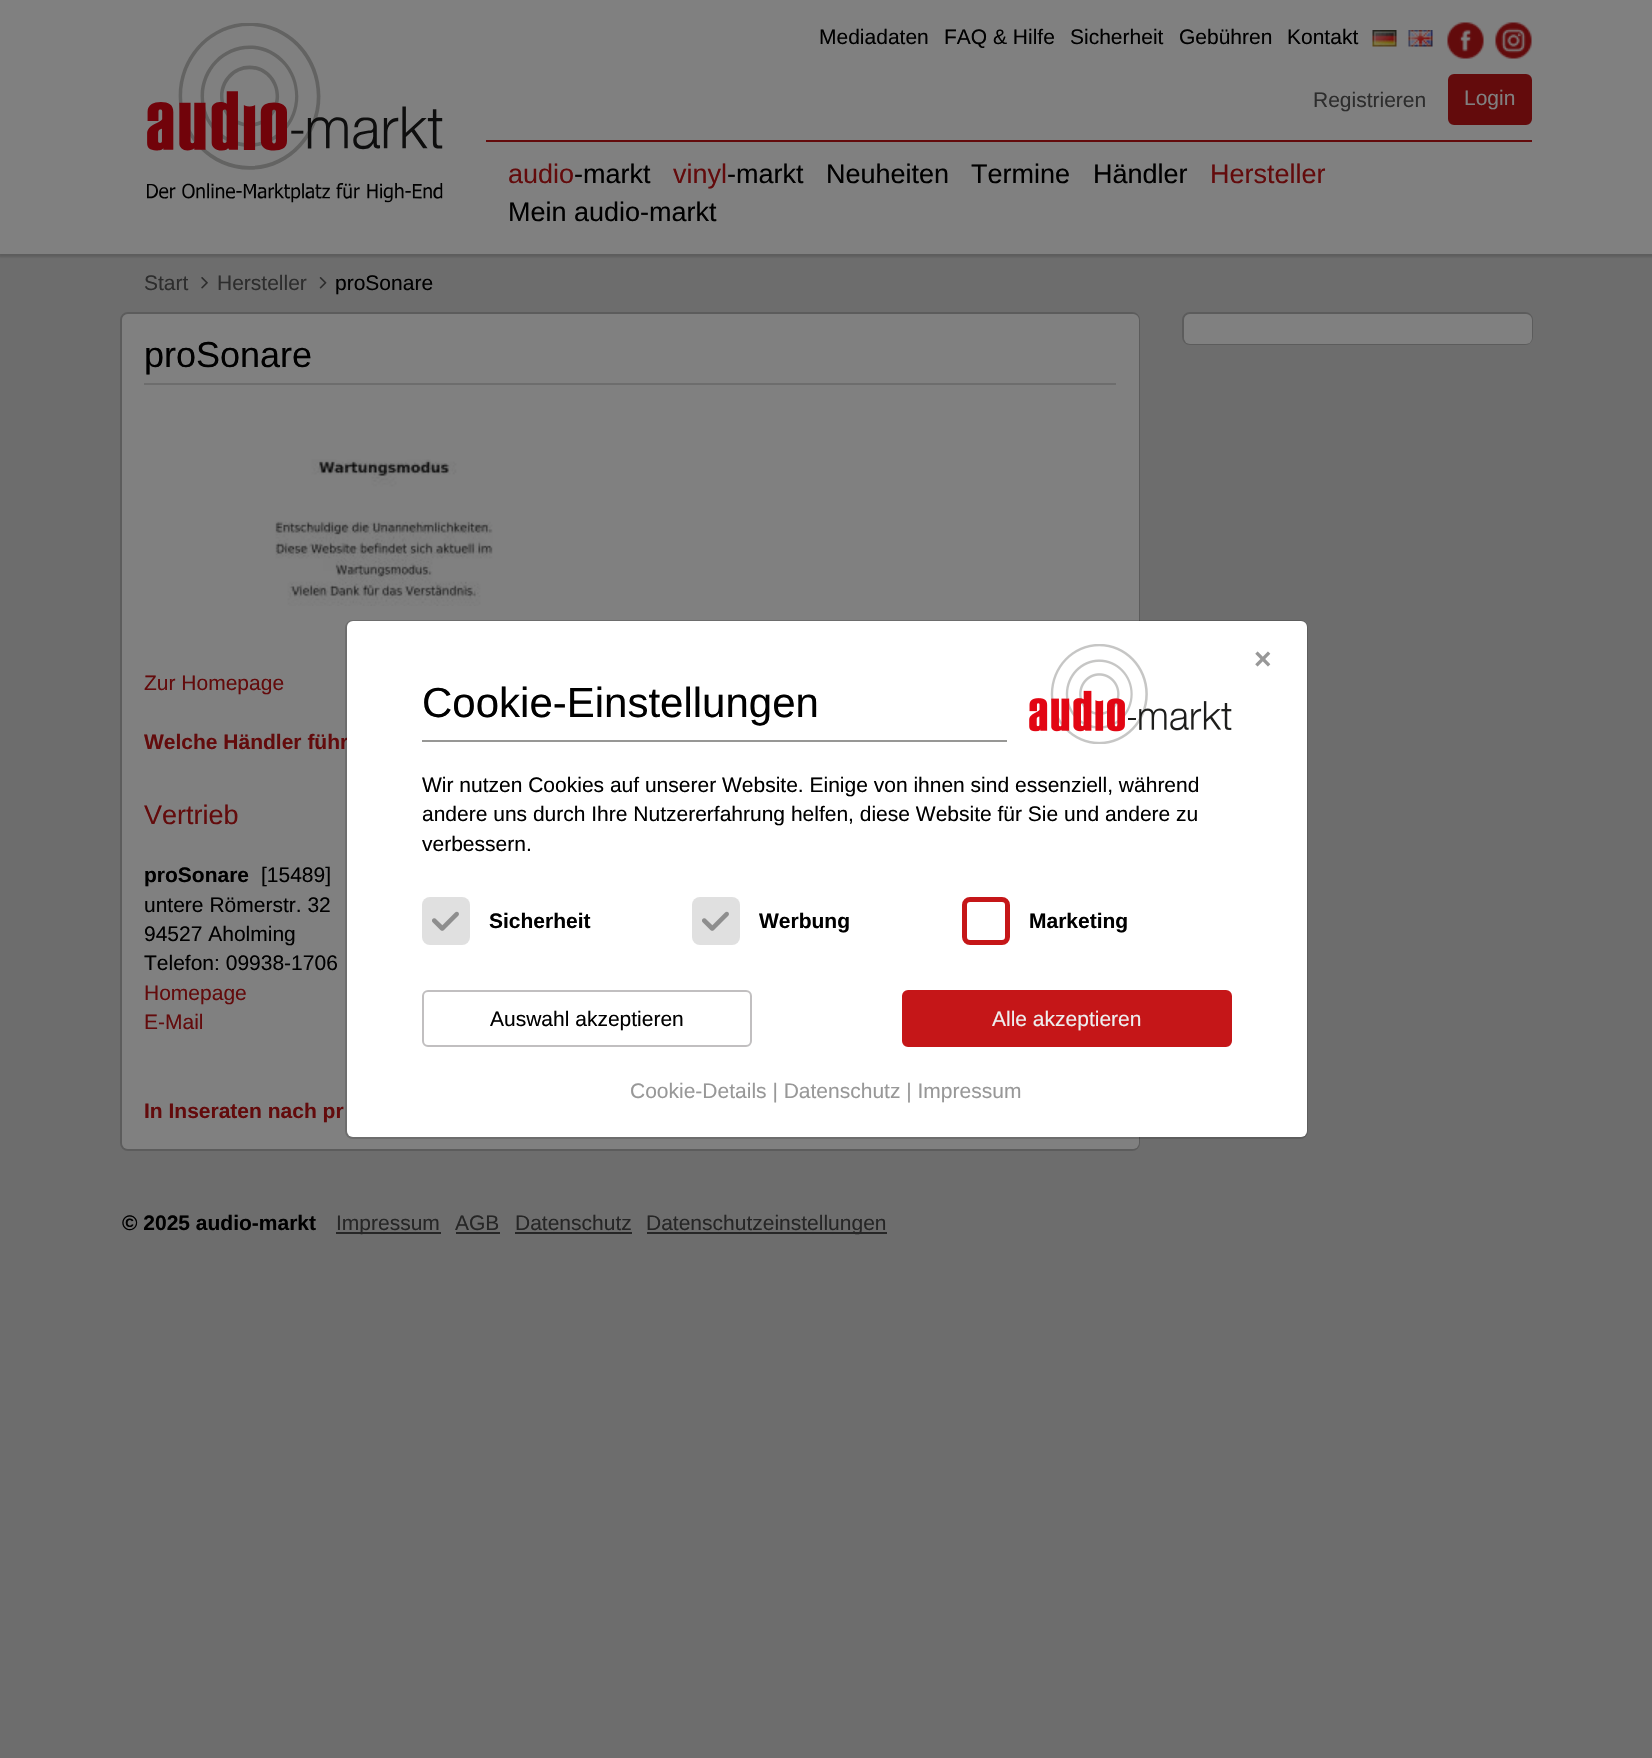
void draw(SkCanvas* canvas) {
    SkPaint paint;
    paint.setAntiAlias(true);
    auto face = [&](const char* family, int weight, float size, bool italic = false) {
        SkFontStyle style(weight, SkFontStyle::kNormal_Width,
            italic ? SkFontStyle::kItalic_Slant : SkFontStyle::kUpright_Slant);
        SkFont result(fontMgr->matchFamilyStyle(family, style), size);
        result.setSubpixel(true);
        return result;
    };
    auto write = [&](const char* s, float x, float y, const SkFont& font, SkColor color) {
        SkPaint ink(SkColor4f::FromColor(color));
        ink.setAntiAlias(true);
        canvas->drawString(s, x, y, font, ink);
    };
    auto block = [&](float x, float y, float w, float h, SkColor color) {
        SkPaint ink(SkColor4f::FromColor(color));
        ink.setAntiAlias(true);
        canvas->drawRect(SkRect::MakeXYWH(x, y, w, h), ink);
    };
    auto card = [&](float x, float y, float w, float h, float radius, SkColor color) {
        SkPaint ink(SkColor4f::FromColor(color));
        ink.setAntiAlias(true);
        canvas->drawRoundRect(SkRect::MakeXYWH(x, y, w, h), radius, radius, ink);
    };
    auto paste = [&](const char* path, float x, float y, float w, float h) {
        auto image = SkImages::DeferredFromEncodedData(SkData::MakeFromFileName(path));
        canvas->drawImageRect(image, SkRect::MakeXYWH(x, y, w, h), SkSamplingOptions());
    };
    canvas->clear(SkColorSetRGB(109, 109, 109));
    paint.setColor(SkColorSetARGB(38, 0, 0, 0));
    paint.setMaskFilter(SkMaskFilter::MakeBlur(kNormal_SkBlurStyle, 1));
    canvas->drawRect(SkRect::MakeXYWH(-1, 0, 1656, 257), paint);
    paint.setMaskFilter(nullptr);
    block(0, 0, 1652, 254, SkColorSetRGB(128, 128, 128));
    paste("pic1.png", 147, 23, 296, 180);
    auto kFont1 = face("Liberation Sans", 400, 21);
    write("Mediadaten", 819, 44, kFont1, SK_ColorBLACK);
    write("FAQ & Hilfe", 944, 44, kFont1, SK_ColorBLACK);
    write("Sicherheit", 1070, 44, kFont1, SK_ColorBLACK);
    write("Gebühren", 1179, 44, kFont1, SK_ColorBLACK);
    write("Kontakt", 1287, 44, kFont1, SK_ColorBLACK);
    paste("pic2.png", 1372, 30, 25, 17);
    paste("pic3.png", 1408, 30, 25, 17);
    paste("pic4.png", 1447, 22, 37, 37);
    paste("pic5.png", 1495, 22, 37, 37);
    block(486, 140, 1046, 2, SkColorSetRGB(99, 11, 12));
    write("Registrieren", 1313, 107, kFont1, SkColorSetRGB(45, 45, 45));
    paint.setColor(SkColorSetRGB(99, 11, 12));
    canvas->drawRoundRect(SkRect::MakeXYWH(1449, 75, 82, 49), 5, 5, paint);
    paint.setStyle(SkPaint::kStroke_Style);
    paint.setStrokeWidth(2);
    canvas->drawRoundRect(SkRect::MakeXYWH(1449, 75, 82, 49), 5, 5, paint);
    write("Login", 1464, 105, kFont1, SkColorSetRGB(128, 128, 128));
    auto kFont2 = face("Liberation Sans", 400, 27);
    write("audio", 508, 183, kFont2, SkColorSetRGB(99, 11, 12));
    write("-markt", 574, 183, kFont2, SK_ColorBLACK);
    write("vinyl", 673, 183, kFont2, SkColorSetRGB(99, 11, 12));
    write("-markt", 727, 183, kFont2, SK_ColorBLACK);
    write("Neuheiten", 826, 183, kFont2, SK_ColorBLACK);
    write("Termine", 971, 183, kFont2, SK_ColorBLACK);
    write("Händler", 1093, 183, kFont2, SK_ColorBLACK);
    write("Hersteller", 1210, 183, kFont2, SkColorSetRGB(99, 11, 12));
    write("Mein audio-markt", 508, 221, kFont2, SK_ColorBLACK);
    write("Start", 144, 290, kFont1, SkColorSetRGB(45, 45, 45));
    paste("pic6.png", 201, 277, 7, 12);
    write("Hersteller", 217, 290, kFont1, SkColorSetRGB(45, 45, 45));
    paste("pic7.png", 319, 277, 8, 12);
    write("proSonare", 335, 290, kFont1, SK_ColorBLACK);
    paint.setColor(SkColorSetRGB(92, 92, 92));
    canvas->drawRoundRect(SkRect::MakeXYWH(1183, 313, 349, 31), 7, 7, paint);
    card(1184, 314, 348, 30, 6, SkColorSetRGB(128, 128, 128));
    canvas->drawRoundRect(SkRect::MakeXYWH(121, 313, 1018, 837), 7, 7, paint);
    card(122, 314, 1017, 835, 6, SkColorSetRGB(128, 128, 128));
    block(144, 383, 972, 2, SkColorSetRGB(109, 109, 109));
    auto kFont3 = face("Liberation Sans", 400, 36);
    write("proSonare", 144, 367, kFont3, SK_ColorBLACK);
    paste("pic8.png", 275, 459, 218, 147);
    write("Zur Homepage", 144, 690, kFont1, SkColorSetRGB(99, 11, 12));
    auto kFont4 = face("Liberation Sans", 700, 21);
    write("Welche Händler führ", 144, 749, kFont4, SkColorSetRGB(99, 11, 12));
    write("Vertrieb", 144, 824, kFont2, SkColorSetRGB(99, 11, 12));
    write("proSonare", 144, 882, kFont4, SK_ColorBLACK);
    write("[15489]", 261, 882, kFont1, SK_ColorBLACK);
    write("untere Römerstr. 32", 144, 912, kFont1, SK_ColorBLACK);
    write("94527 Aholming", 144, 941, kFont1, SK_ColorBLACK);
    write("Telefon: 09938-1706", 144, 970, kFont1, SK_ColorBLACK);
    write("Homepage", 144, 1000, kFont1, SkColorSetRGB(99, 11, 12));
    write("E-Mail", 144, 1029, kFont1, SkColorSetRGB(99, 11, 12));
    write("In Inseraten nach pr", 144, 1118, kFont4, SkColorSetRGB(99, 11, 12));
    paint.setColor(SkColorSetARGB(38, 0, 0, 0));
    canvas->drawRoundRect(SkRect::MakeXYWH(346, 621, 961, 517), 7, 7, paint);
    card(347, 621, 960, 516, 6, SK_ColorWHITE);
    paste("pic9.png", 1029, 644, 203, 100);
    auto kFont5 = face("Liberation Sans", 700, 30);
    write("×", 1254, 669, kFont5, SkColorSetRGB(152, 152, 152));
    write("Wir nutzen Cookies auf unserer Website. Einige von ihnen sind essenziell, während", 422, 792, kFont1, SK_ColorBLACK);
    write("andere uns durch Ihre Nutzererfahrung helfen, diese Website für Sie und andere zu", 422, 821, kFont1, SK_ColorBLACK);
    write("verbessern.", 422, 851, kFont1, SK_ColorBLACK);
    write("Cookie-Details | Datenschutz | Impressum", 630, 1098, kFont1, SkColorSetRGB(152, 152, 152));
    block(422, 740, 585, 2, SkColorSetRGB(151, 151, 149));
    auto kFont6 = face("Liberation Sans", 400, 42);
    write("Cookie-Einstellungen", 422, 717, kFont6, SK_ColorBLACK);
    card(422, 897, 48, 48, 8, SkColorSetRGB(224, 224, 224));
    paste("pic10.png", 432, 911, 27, 20);
    write("Sicherheit", 489, 928, kFont4, SK_ColorBLACK);
    card(692, 897, 48, 48, 8, SkColorSetRGB(224, 224, 224));
    paste("pic10.png", 702, 911, 27, 20);
    write("Werbung", 759, 928, kFont4, SK_ColorBLACK);
    paint.setStrokeWidth(5);
    paint.setColor(SkColorSetRGB(197, 22, 24));
    canvas->drawRoundRect(SkRect::MakeXYWH(964.5f, 899.5f, 43, 43), 5.5f, 5.5f, paint);
    write("Marketing", 1029, 928, kFont4, SK_ColorBLACK);
    paint.setStrokeWidth(2);
    paint.setColor(SkColorSetRGB(193, 191, 192));
    canvas->drawRoundRect(SkRect::MakeXYWH(423, 991, 328, 55), 5, 5, paint);
    write("Auswahl akzeptieren", 490, 1026, kFont1, SK_ColorBLACK);
    paint.setStyle(SkPaint::kFill_Style);
    paint.setColor(SkColorSetRGB(197, 22, 24));
    canvas->drawRoundRect(SkRect::MakeXYWH(903, 991, 328, 55), 5, 5, paint);
    paint.setStyle(SkPaint::kStroke_Style);
    canvas->drawRoundRect(SkRect::MakeXYWH(903, 991, 328, 55), 5, 5, paint);
    write("Alle akzeptieren", 992, 1026, kFont1, SkColorSetRGB(238, 238, 238));
    write("© 2025 audio-markt", 122, 1230, kFont4, SK_ColorBLACK);
    block(336, 1232, 105, 2, SkColorSetRGB(38, 38, 38));
    write("Impressum", 336, 1230, kFont1, SkColorSetRGB(38, 38, 38));
    write("AGB", 455, 1230, kFont1, SkColorSetRGB(38, 38, 38));
    block(456, 1232, 44, 2, SkColorSetRGB(38, 38, 38));
    write("Datenschutz", 515, 1230, kFont1, SkColorSetRGB(38, 38, 38));
    block(515, 1232, 117, 2, SkColorSetRGB(38, 38, 38));
    block(647, 1232, 240, 2, SkColorSetRGB(38, 38, 38));
    write("Datenschutzeinstellungen", 646, 1230, kFont1, SkColorSetRGB(38, 38, 38));
}
